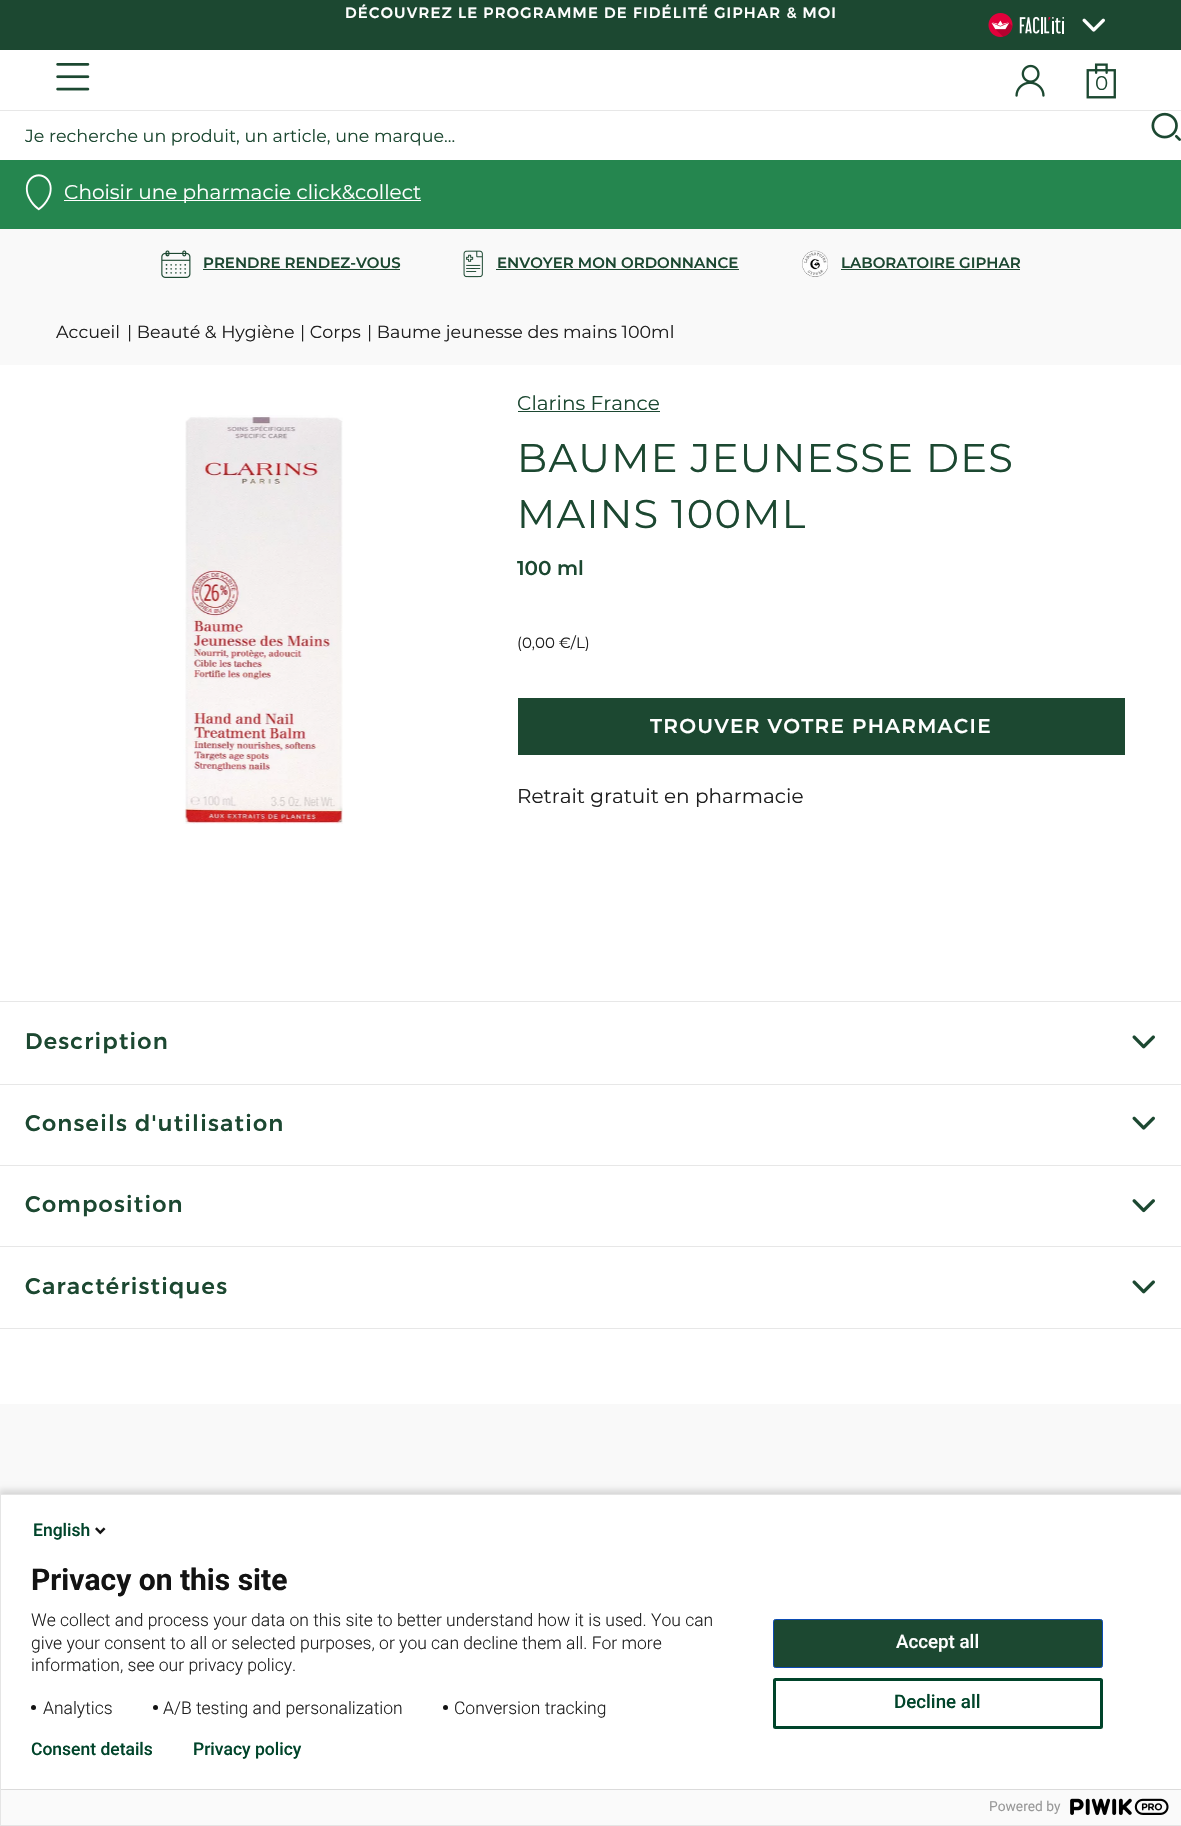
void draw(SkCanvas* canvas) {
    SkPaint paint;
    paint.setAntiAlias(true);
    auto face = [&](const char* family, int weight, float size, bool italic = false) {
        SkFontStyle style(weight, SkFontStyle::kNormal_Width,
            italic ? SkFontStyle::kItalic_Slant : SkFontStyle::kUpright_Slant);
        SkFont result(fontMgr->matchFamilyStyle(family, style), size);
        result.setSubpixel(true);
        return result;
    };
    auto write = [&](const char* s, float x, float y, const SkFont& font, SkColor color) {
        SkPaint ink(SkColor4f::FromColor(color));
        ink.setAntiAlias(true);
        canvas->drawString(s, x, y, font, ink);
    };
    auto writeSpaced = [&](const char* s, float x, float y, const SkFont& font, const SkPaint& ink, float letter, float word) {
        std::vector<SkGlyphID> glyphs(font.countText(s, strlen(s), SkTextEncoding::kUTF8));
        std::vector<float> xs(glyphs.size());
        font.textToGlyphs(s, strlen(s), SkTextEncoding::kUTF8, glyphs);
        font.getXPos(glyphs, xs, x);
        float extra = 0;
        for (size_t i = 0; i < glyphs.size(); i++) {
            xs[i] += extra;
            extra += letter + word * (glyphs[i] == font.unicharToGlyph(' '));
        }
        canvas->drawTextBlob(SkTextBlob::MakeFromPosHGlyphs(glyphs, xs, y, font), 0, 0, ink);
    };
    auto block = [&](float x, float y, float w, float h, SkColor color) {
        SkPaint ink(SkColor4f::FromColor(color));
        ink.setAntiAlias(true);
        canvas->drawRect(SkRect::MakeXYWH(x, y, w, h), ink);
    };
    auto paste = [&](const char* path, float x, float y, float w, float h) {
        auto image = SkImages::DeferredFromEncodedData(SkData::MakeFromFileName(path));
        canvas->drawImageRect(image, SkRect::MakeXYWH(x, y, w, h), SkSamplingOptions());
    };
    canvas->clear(SK_ColorWHITE);
    block(0, 0, 1181, 50, SkColorSetRGB(28, 72, 49));
    auto kFont1 = face("Montserrat", 500, 15);
    paint.setColor(SK_ColorWHITE);
    writeSpaced("DÉCOUVREZ LE PROGRAMME DE FIDÉLITÉ GIPHAR & MOI", 345, 18, kFont1, paint, 1.25f, 0);
    paste("pic1.png", 988, 13, 76, 24);
    paste("pic2.png", 1082, 18, 23, 14);
    paste("pic3.png", 56, 63, 34, 28);
    paste("pic4.png", 1015, 64, 30, 33);
    paste("pic5.png", 1086, 63, 30, 36);
    auto kFont2 = face("Montserrat", 400, 20);
    write("0", 1095, 90, kFont2, SkColorSetRGB(28, 72, 49));
    block(0, 110, 1181, 1, SkColorSetRGB(231, 231, 231));
    auto kFont3 = face("Montserrat", 400, 17.5f);
    write("Je recherche un produit, un article, une marque...", 25, 142, kFont3, SkColorSetRGB(28, 72, 49));
    paste("pic6.png", 1151, 112, 30, 29);
    block(0, 160, 1181, 69, SkColorSetRGB(37, 134, 79));
    paste("pic7.png", 25, 174, 27, 37);
    block(64, 200, 357, 1, SK_ColorWHITE);
    write("Choisir une pharmacie click&collect", 64, 199, kFont2, SK_ColorWHITE);
    block(0, 229, 1181, 136, SkColorSetRGB(249, 249, 249));
    paste("pic8.png", 161, 250, 30, 28);
    auto kFont4 = face("Montserrat", 100, 15);
    write("PRENDRE RENDEZ-VOUS", 203, 268, kFont4, SkColorSetRGB(28, 72, 49));
    block(203, 269, 197, 1, SkColorSetRGB(28, 72, 49));
    paste("pic9.png", 463, 250, 20, 28);
    write("ENVOYER MON ORDONNANCE", 497, 268, kFont4, SkColorSetRGB(28, 72, 49));
    block(496, 269, 243, 1, SkColorSetRGB(28, 72, 49));
    paste("pic10.png", 802, 250, 26, 27);
    write("LABORATOIRE GIPHAR", 841, 268, kFont4, SkColorSetRGB(28, 72, 49));
    block(841, 269, 179, 1, SkColorSetRGB(28, 72, 49));
    write("Accueil", 56, 338, kFont3, SkColorSetRGB(31, 31, 31));
    write("| Beauté & Hygiène", 127, 338, kFont3, SkColorSetRGB(31, 31, 31));
    write("| Corps", 300, 338, kFont3, SkColorSetRGB(31, 31, 31));
    write("| Baume jeunesse des mains 100ml", 367, 338, kFont3, SkColorSetRGB(31, 31, 31));
    paste("pic11.png", 183, 415, 160, 409);
    write("Clarins France", 517, 410, kFont2, SkColorSetRGB(28, 72, 49));
    block(518, 411, 142, 1, SkColorSetRGB(28, 72, 49));
    auto kFont5 = face("Montserrat", 400, 40);
    paint.setColor(SkColorSetRGB(28, 72, 49));
    writeSpaced("BAUME JEUNESSE DES", 517, 472, kFont5, paint, 1.25f, 0);
    writeSpaced("MAINS 100ML", 517, 528, kFont5, paint, 1.25f, 0);
    auto kFont6 = face("Montserrat", 100, 20);
    write("100 ml", 517, 575, kFont6, SkColorSetRGB(28, 72, 49));
    auto kFont7 = face("Montserrat", 400, 15);
    write("(0,00 €/L)", 517, 648, kFont7, SkColorSetRGB(31, 31, 31));
    block(518, 698, 607, 57, SkColorSetRGB(28, 72, 49));
    paint.setColor(SK_ColorWHITE);
    writeSpaced("TROUVER VOTRE PHARMACIE", 650, 733, kFont6, paint, 1.25f, 0);
    write("Retrait gratuit en pharmacie", 517, 803, kFont2, SkColorSetRGB(31, 31, 31));
    block(0, 1001, 1181, 1, SkColorSetRGB(231, 231, 231));
    block(0, 1328, 1181, 1, SkColorSetRGB(231, 231, 231));
    block(0, 1084, 1181, 1, SkColorSetRGB(231, 231, 231));
    auto kFont8 = face("Montserrat", 500, 22.5f);
    paint.setColor(SkColorSetRGB(28, 72, 49));
    writeSpaced("Description", 25, 1049, kFont8, paint, 1.25f, 0);
    paste("pic12.png", 1132, 1035, 23, 14);
    block(0, 1165, 1181, 1, SkColorSetRGB(231, 231, 231));
    writeSpaced("Conseils d'utilisation", 25, 1131, kFont8, paint, 1.25f, 0);
    paste("pic13.png", 1132, 1116, 23, 14);
    block(0, 1246, 1181, 1, SkColorSetRGB(231, 231, 231));
    writeSpaced("Composition", 25, 1212, kFont8, paint, 1.25f, 0);
    paste("pic14.png", 1132, 1199, 23, 14);
    writeSpaced("Caractéristiques", 25, 1294, kFont8, paint, 1.25f, 0);
    paste("pic12.png", 1132, 1280, 23, 14);
    block(0, 1404, 1181, 90, SkColorSetRGB(249, 249, 249));
    paint.setColor(SkColorSetARGB(36, 0, 0, 0));
    paint.setMaskFilter(SkMaskFilter::MakeBlur(kNormal_SkBlurStyle, 3));
    canvas->drawRect(SkRect::MakeXYWH(-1, 1490, 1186, 335), paint);
    paint.setMaskFilter(nullptr);
    block(1, 1495, 1180, 294, SK_ColorWHITE);
    paint.setStyle(SkPaint::kStroke_Style);
    paint.setStrokeWidth(1);
    paint.setColor(SkColorSetRGB(229, 229, 229));
    canvas->drawRect(SkRect::MakeXYWH(0.5f, 1494.5f, 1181, 331), paint);
    auto kFont9 = face("Roboto", 500, 17.5f);
    write("English", 33, 1536, kFont9, SkColorSetRGB(0, 68, 42));
    paste("pic15.png", 95, 1527, 11, 8);
    auto kFont10 = face("Roboto", 700, 30);
    write("Privacy on this site", 31, 1590, kFont10, SkColorSetRGB(19, 19, 19));
    auto kFont11 = face("Roboto", 300, 17.5f);
    write("We collect and process your data on this site to better understand how it is used. You can", 31, 1626, kFont11, SkColorSetRGB(31, 31, 31));
    write("give your consent to all or selected purposes, or you can decline them all. For more", 31, 1649, kFont11, SkColorSetRGB(31, 31, 31));
    write("information, see our privacy policy.", 31, 1671, kFont11, SkColorSetRGB(31, 31, 31));
    paint.setStyle(SkPaint::kFill_Style);
    paint.setColor(SkColorSetRGB(19, 19, 19));
    canvas->drawCircle(33.5f, 1707.5f, 2.5f, paint);
    write("Analytics", 43, 1714, kFont11, SkColorSetRGB(31, 31, 31));
    canvas->drawCircle(155.5f, 1707.5f, 2.5f, paint);
    write("A/B testing and personalization", 163, 1714, kFont11, SkColorSetRGB(31, 31, 31));
    canvas->drawCircle(445.5f, 1707.5f, 2.5f, paint);
    write("Conversion tracking", 454, 1714, kFont11, SkColorSetRGB(31, 31, 31));
    paint.setColor(SkColorSetRGB(28, 72, 49));
    canvas->drawRoundRect(SkRect::MakeXYWH(773.5f, 1619.5f, 329, 48), 2, 2, paint);
    paint.setStyle(SkPaint::kStroke_Style);
    paint.setColor(SkColorSetRGB(11, 75, 179));
    canvas->drawRoundRect(SkRect::MakeXYWH(773.5f, 1619.5f, 329, 48), 2, 2, paint);
    auto kFont12 = face("Roboto", 500, 18.75f);
    write("Accept all", 896, 1648, kFont12, SK_ColorWHITE);
    paint.setStrokeWidth(3);
    paint.setColor(SkColorSetRGB(0, 68, 42));
    canvas->drawRoundRect(SkRect::MakeXYWH(774.5f, 1679.5f, 327, 48), 1, 1, paint);
    write("Decline all", 894, 1708, kFont12, SkColorSetRGB(0, 68, 42));
    write("Consent details", 31, 1755, kFont9, SkColorSetRGB(0, 68, 42));
    write("Privacy policy", 193, 1755, kFont9, SkColorSetRGB(0, 68, 42));
    block(1, 1790, 1180, 35, SkColorSetRGB(250, 250, 250));
    block(1, 1789, 2, 1, SkColorSetRGB(221, 221, 221));
    auto kFont13 = face("Roboto", 400, 13.75f);
    write("Powered by", 989, 1811, kFont13, SkColorSetRGB(153, 153, 153));
    paste("pic16.png", 1070, 1798, 99, 17);
}
